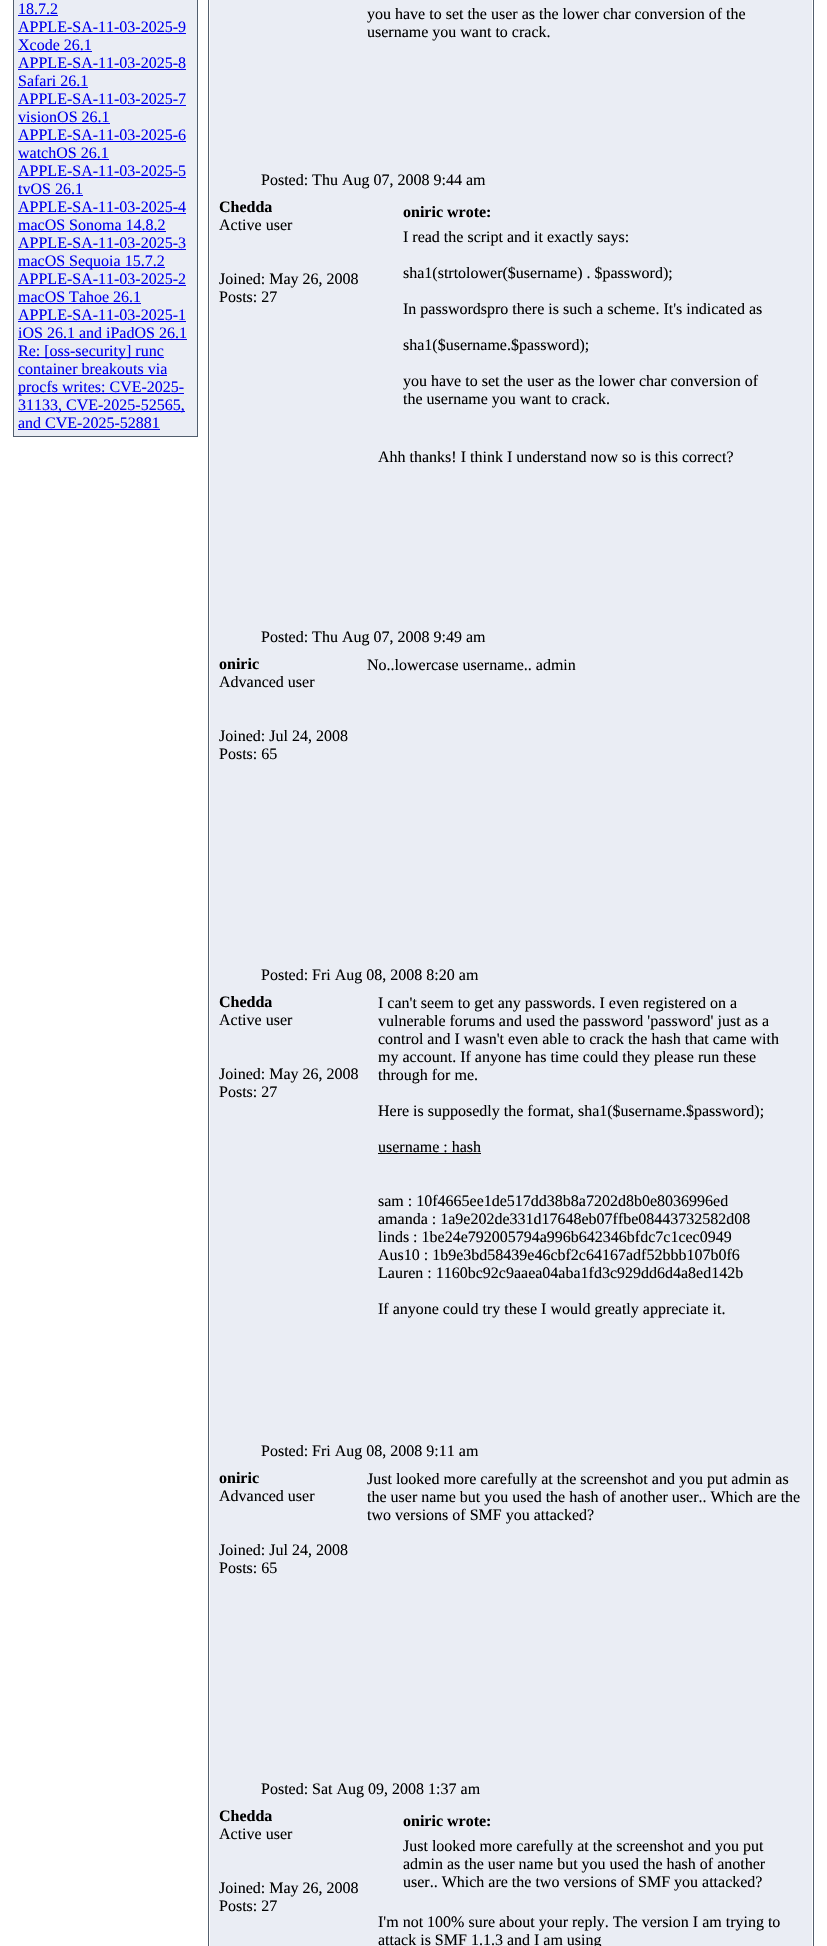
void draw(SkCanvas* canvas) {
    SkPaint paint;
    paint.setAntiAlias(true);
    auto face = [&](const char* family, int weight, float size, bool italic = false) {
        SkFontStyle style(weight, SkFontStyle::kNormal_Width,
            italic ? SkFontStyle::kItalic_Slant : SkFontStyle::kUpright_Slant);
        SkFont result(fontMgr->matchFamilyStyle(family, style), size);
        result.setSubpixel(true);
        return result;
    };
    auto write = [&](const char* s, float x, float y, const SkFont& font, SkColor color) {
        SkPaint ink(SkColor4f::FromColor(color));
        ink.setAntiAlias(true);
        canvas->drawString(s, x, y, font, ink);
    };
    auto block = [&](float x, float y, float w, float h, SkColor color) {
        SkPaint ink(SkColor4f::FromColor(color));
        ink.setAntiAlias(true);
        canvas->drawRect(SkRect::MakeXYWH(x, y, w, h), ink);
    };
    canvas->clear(SK_ColorWHITE);
    block(13, 0, 185, 437, SkColorSetRGB(82, 94, 110));
    block(14, 0, 183, 436, SkColorSetRGB(234, 237, 244));
    auto kFont1 = face("Liberation Serif", 400, 16);
    write("18.7.2", 18, 14, kFont1, SkColorSetRGB(0, 0, 238));
    block(18, 15, 40, 1, SkColorSetRGB(0, 0, 238));
    write("APPLE-SA-11-03-2025-9", 18, 32, kFont1, SkColorSetRGB(0, 0, 238));
    block(18, 33, 168, 1, SkColorSetRGB(0, 0, 238));
    write("Xcode 26.1", 18, 50, kFont1, SkColorSetRGB(0, 0, 238));
    block(18, 51, 74, 1, SkColorSetRGB(0, 0, 238));
    write("APPLE-SA-11-03-2025-8", 18, 68, kFont1, SkColorSetRGB(0, 0, 238));
    block(18, 69, 168, 1, SkColorSetRGB(0, 0, 238));
    write("Safari 26.1", 18, 86, kFont1, SkColorSetRGB(0, 0, 238));
    block(18, 87, 70, 1, SkColorSetRGB(0, 0, 238));
    write("APPLE-SA-11-03-2025-7", 18, 104, kFont1, SkColorSetRGB(0, 0, 238));
    block(18, 105, 168, 1, SkColorSetRGB(0, 0, 238));
    write("visionOS 26.1", 18, 122, kFont1, SkColorSetRGB(0, 0, 238));
    block(18, 123, 92, 1, SkColorSetRGB(0, 0, 238));
    write("APPLE-SA-11-03-2025-6", 18, 140, kFont1, SkColorSetRGB(0, 0, 238));
    block(18, 141, 168, 1, SkColorSetRGB(0, 0, 238));
    write("watchOS 26.1", 18, 158, kFont1, SkColorSetRGB(0, 0, 238));
    block(18, 159, 91, 1, SkColorSetRGB(0, 0, 238));
    write("APPLE-SA-11-03-2025-5", 18, 176, kFont1, SkColorSetRGB(0, 0, 238));
    block(18, 177, 168, 1, SkColorSetRGB(0, 0, 238));
    write("tvOS 26.1", 18, 194, kFont1, SkColorSetRGB(0, 0, 238));
    block(18, 195, 65, 1, SkColorSetRGB(0, 0, 238));
    write("APPLE-SA-11-03-2025-4", 18, 212, kFont1, SkColorSetRGB(0, 0, 238));
    block(18, 213, 168, 1, SkColorSetRGB(0, 0, 238));
    write("macOS Sonoma 14.8.2", 18, 230, kFont1, SkColorSetRGB(0, 0, 238));
    block(18, 231, 148, 1, SkColorSetRGB(0, 0, 238));
    write("APPLE-SA-11-03-2025-3", 18, 248, kFont1, SkColorSetRGB(0, 0, 238));
    block(18, 249, 168, 1, SkColorSetRGB(0, 0, 238));
    block(18, 267, 147, 1, SkColorSetRGB(0, 0, 238));
    write("macOS Sequoia 15.7.2", 18, 266, kFont1, SkColorSetRGB(0, 0, 238));
    write("APPLE-SA-11-03-2025-2", 18, 284, kFont1, SkColorSetRGB(0, 0, 238));
    block(18, 285, 168, 1, SkColorSetRGB(0, 0, 238));
    write("macOS Tahoe 26.1", 18, 302, kFont1, SkColorSetRGB(0, 0, 238));
    block(18, 303, 123, 1, SkColorSetRGB(0, 0, 238));
    write("APPLE-SA-11-03-2025-1", 18, 320, kFont1, SkColorSetRGB(0, 0, 238));
    block(18, 321, 168, 1, SkColorSetRGB(0, 0, 238));
    write("iOS 26.1 and iPadOS 26.1", 18, 338, kFont1, SkColorSetRGB(0, 0, 238));
    block(18, 339, 169, 1, SkColorSetRGB(0, 0, 238));
    block(18, 357, 146, 1, SkColorSetRGB(0, 0, 238));
    write("Re: [oss-security] runc", 18, 356, kFont1, SkColorSetRGB(0, 0, 238));
    write("container breakouts via", 18, 374, kFont1, SkColorSetRGB(0, 0, 238));
    block(18, 375, 149, 1, SkColorSetRGB(0, 0, 238));
    block(18, 393, 166, 1, SkColorSetRGB(0, 0, 238));
    write("procfs writes: CVE-2025-", 18, 392, kFont1, SkColorSetRGB(0, 0, 238));
    block(18, 411, 167, 1, SkColorSetRGB(0, 0, 238));
    write("31133, CVE-2025-52565,", 18, 410, kFont1, SkColorSetRGB(0, 0, 238));
    write("and CVE-2025-52881", 18, 428, kFont1, SkColorSetRGB(0, 0, 238));
    block(18, 429, 142, 1, SkColorSetRGB(0, 0, 238));
    block(208, 0, 606, 1946, SkColorSetRGB(82, 94, 110));
    block(209, 0, 604, 1946, SK_ColorWHITE);
    block(210, 0, 602, 1946, SkColorSetRGB(234, 237, 244));
    write("you have to set the user as the lower char conversion of the", 367, 19, kFont1, SK_ColorBLACK);
    write("username you want to crack.", 367, 37, kFont1, SK_ColorBLACK);
    write("Posted: Thu Aug 07, 2008 9:44 am", 261, 185, kFont1, SK_ColorBLACK);
    auto kFont2 = face("Liberation Serif", 700, 16);
    write("Chedda", 219, 212, kFont2, SK_ColorBLACK);
    write("Active user", 219, 230, kFont1, SK_ColorBLACK);
    write("Joined: May 26, 2008", 219, 284, kFont1, SK_ColorBLACK);
    write("Posts: 27", 219, 302, kFont1, SK_ColorBLACK);
    write("oniric wrote:", 403, 217, kFont2, SK_ColorBLACK);
    write("I read the script and it exactly says:", 403, 242, kFont1, SK_ColorBLACK);
    write("sha1(strtolower($username) . $password);", 403, 278, kFont1, SK_ColorBLACK);
    write("In passwordspro there is such a scheme. It's indicated as", 403, 314, kFont1, SK_ColorBLACK);
    write("sha1($username.$password);", 403, 350, kFont1, SK_ColorBLACK);
    write("you have to set the user as the lower char conversion of", 403, 386, kFont1, SK_ColorBLACK);
    write("the username you want to crack.", 403, 404, kFont1, SK_ColorBLACK);
    write("Ahh thanks! I think I understand now so is this correct?", 378, 462, kFont1, SK_ColorBLACK);
    write("Posted: Thu Aug 07, 2008 9:49 am", 261, 642, kFont1, SK_ColorBLACK);
    write("oniric", 219, 669, kFont2, SK_ColorBLACK);
    write("Advanced user", 219, 687, kFont1, SK_ColorBLACK);
    write("Joined: Jul 24, 2008", 219, 741, kFont1, SK_ColorBLACK);
    write("Posts: 65", 219, 759, kFont1, SK_ColorBLACK);
    write("No..lowercase username.. admin", 367, 670, kFont1, SK_ColorBLACK);
    write("Posted: Fri Aug 08, 2008 8:20 am", 261, 980, kFont1, SK_ColorBLACK);
    write("Chedda", 219, 1007, kFont2, SK_ColorBLACK);
    write("Active user", 219, 1025, kFont1, SK_ColorBLACK);
    write("Joined: May 26, 2008", 219, 1079, kFont1, SK_ColorBLACK);
    write("Posts: 27", 219, 1097, kFont1, SK_ColorBLACK);
    write("I can't seem to get any passwords. I even registered on a", 378, 1008, kFont1, SK_ColorBLACK);
    write("vulnerable forums and used the password 'password' just as a", 378, 1026, kFont1, SK_ColorBLACK);
    write("control and I wasn't even able to crack the hash that came with", 378, 1044, kFont1, SK_ColorBLACK);
    write("my account. If anyone has time could they please run these", 378, 1062, kFont1, SK_ColorBLACK);
    write("through for me.", 378, 1080, kFont1, SK_ColorBLACK);
    write("Here is supposedly the format, sha1($username.$password);", 378, 1116, kFont1, SK_ColorBLACK);
    write("username : hash", 378, 1152, kFont1, SK_ColorBLACK);
    block(378, 1153, 103, 1, SK_ColorBLACK);
    write("sam : 10f4665ee1de517dd38b8a7202d8b0e8036996ed", 378, 1206, kFont1, SK_ColorBLACK);
    write("amanda : 1a9e202de331d17648eb07ffbe08443732582d08", 378, 1224, kFont1, SK_ColorBLACK);
    write("linds : 1be24e792005794a996b642346bfdc7c1cec0949", 378, 1242, kFont1, SK_ColorBLACK);
    write("Aus10 : 1b9e3bd58439e46cbf2c64167adf52bbb107b0f6", 378, 1260, kFont1, SK_ColorBLACK);
    write("Lauren : 1160bc92c9aaea04aba1fd3c929dd6d4a8ed142b", 378, 1278, kFont1, SK_ColorBLACK);
    write("If anyone could try these I would greatly appreciate it.", 378, 1314, kFont1, SK_ColorBLACK);
    write("Posted: Fri Aug 08, 2008 9:11 am", 261, 1456, kFont1, SK_ColorBLACK);
    write("oniric", 219, 1483, kFont2, SK_ColorBLACK);
    write("Advanced user", 219, 1501, kFont1, SK_ColorBLACK);
    write("Joined: Jul 24, 2008", 219, 1555, kFont1, SK_ColorBLACK);
    write("Posts: 65", 219, 1573, kFont1, SK_ColorBLACK);
    write("Just looked more carefully at the screenshot and you put admin as", 367, 1484, kFont1, SK_ColorBLACK);
    write("the user name but you used the hash of another user.. Which are the", 367, 1502, kFont1, SK_ColorBLACK);
    write("two versions of SMF you attacked?", 367, 1520, kFont1, SK_ColorBLACK);
    write("Posted: Sat Aug 09, 2008 1:37 am", 261, 1794, kFont1, SK_ColorBLACK);
    write("Chedda", 219, 1821, kFont2, SK_ColorBLACK);
    write("Active user", 219, 1839, kFont1, SK_ColorBLACK);
    write("Joined: May 26, 2008", 219, 1893, kFont1, SK_ColorBLACK);
    write("Posts: 27", 219, 1911, kFont1, SK_ColorBLACK);
    write("oniric wrote:", 403, 1826, kFont2, SK_ColorBLACK);
    write("Just looked more carefully at the screenshot and you put", 403, 1851, kFont1, SK_ColorBLACK);
    write("admin as the user name but you used the hash of another", 403, 1869, kFont1, SK_ColorBLACK);
    write("user.. Which are the two versions of SMF you attacked?", 403, 1887, kFont1, SK_ColorBLACK);
    write("I'm not 100% sure about your reply. The version I am trying to", 378, 1927, kFont1, SK_ColorBLACK);
    write("attack is SMF 1.1.3 and I am using", 378, 1945, kFont1, SK_ColorBLACK);
}
